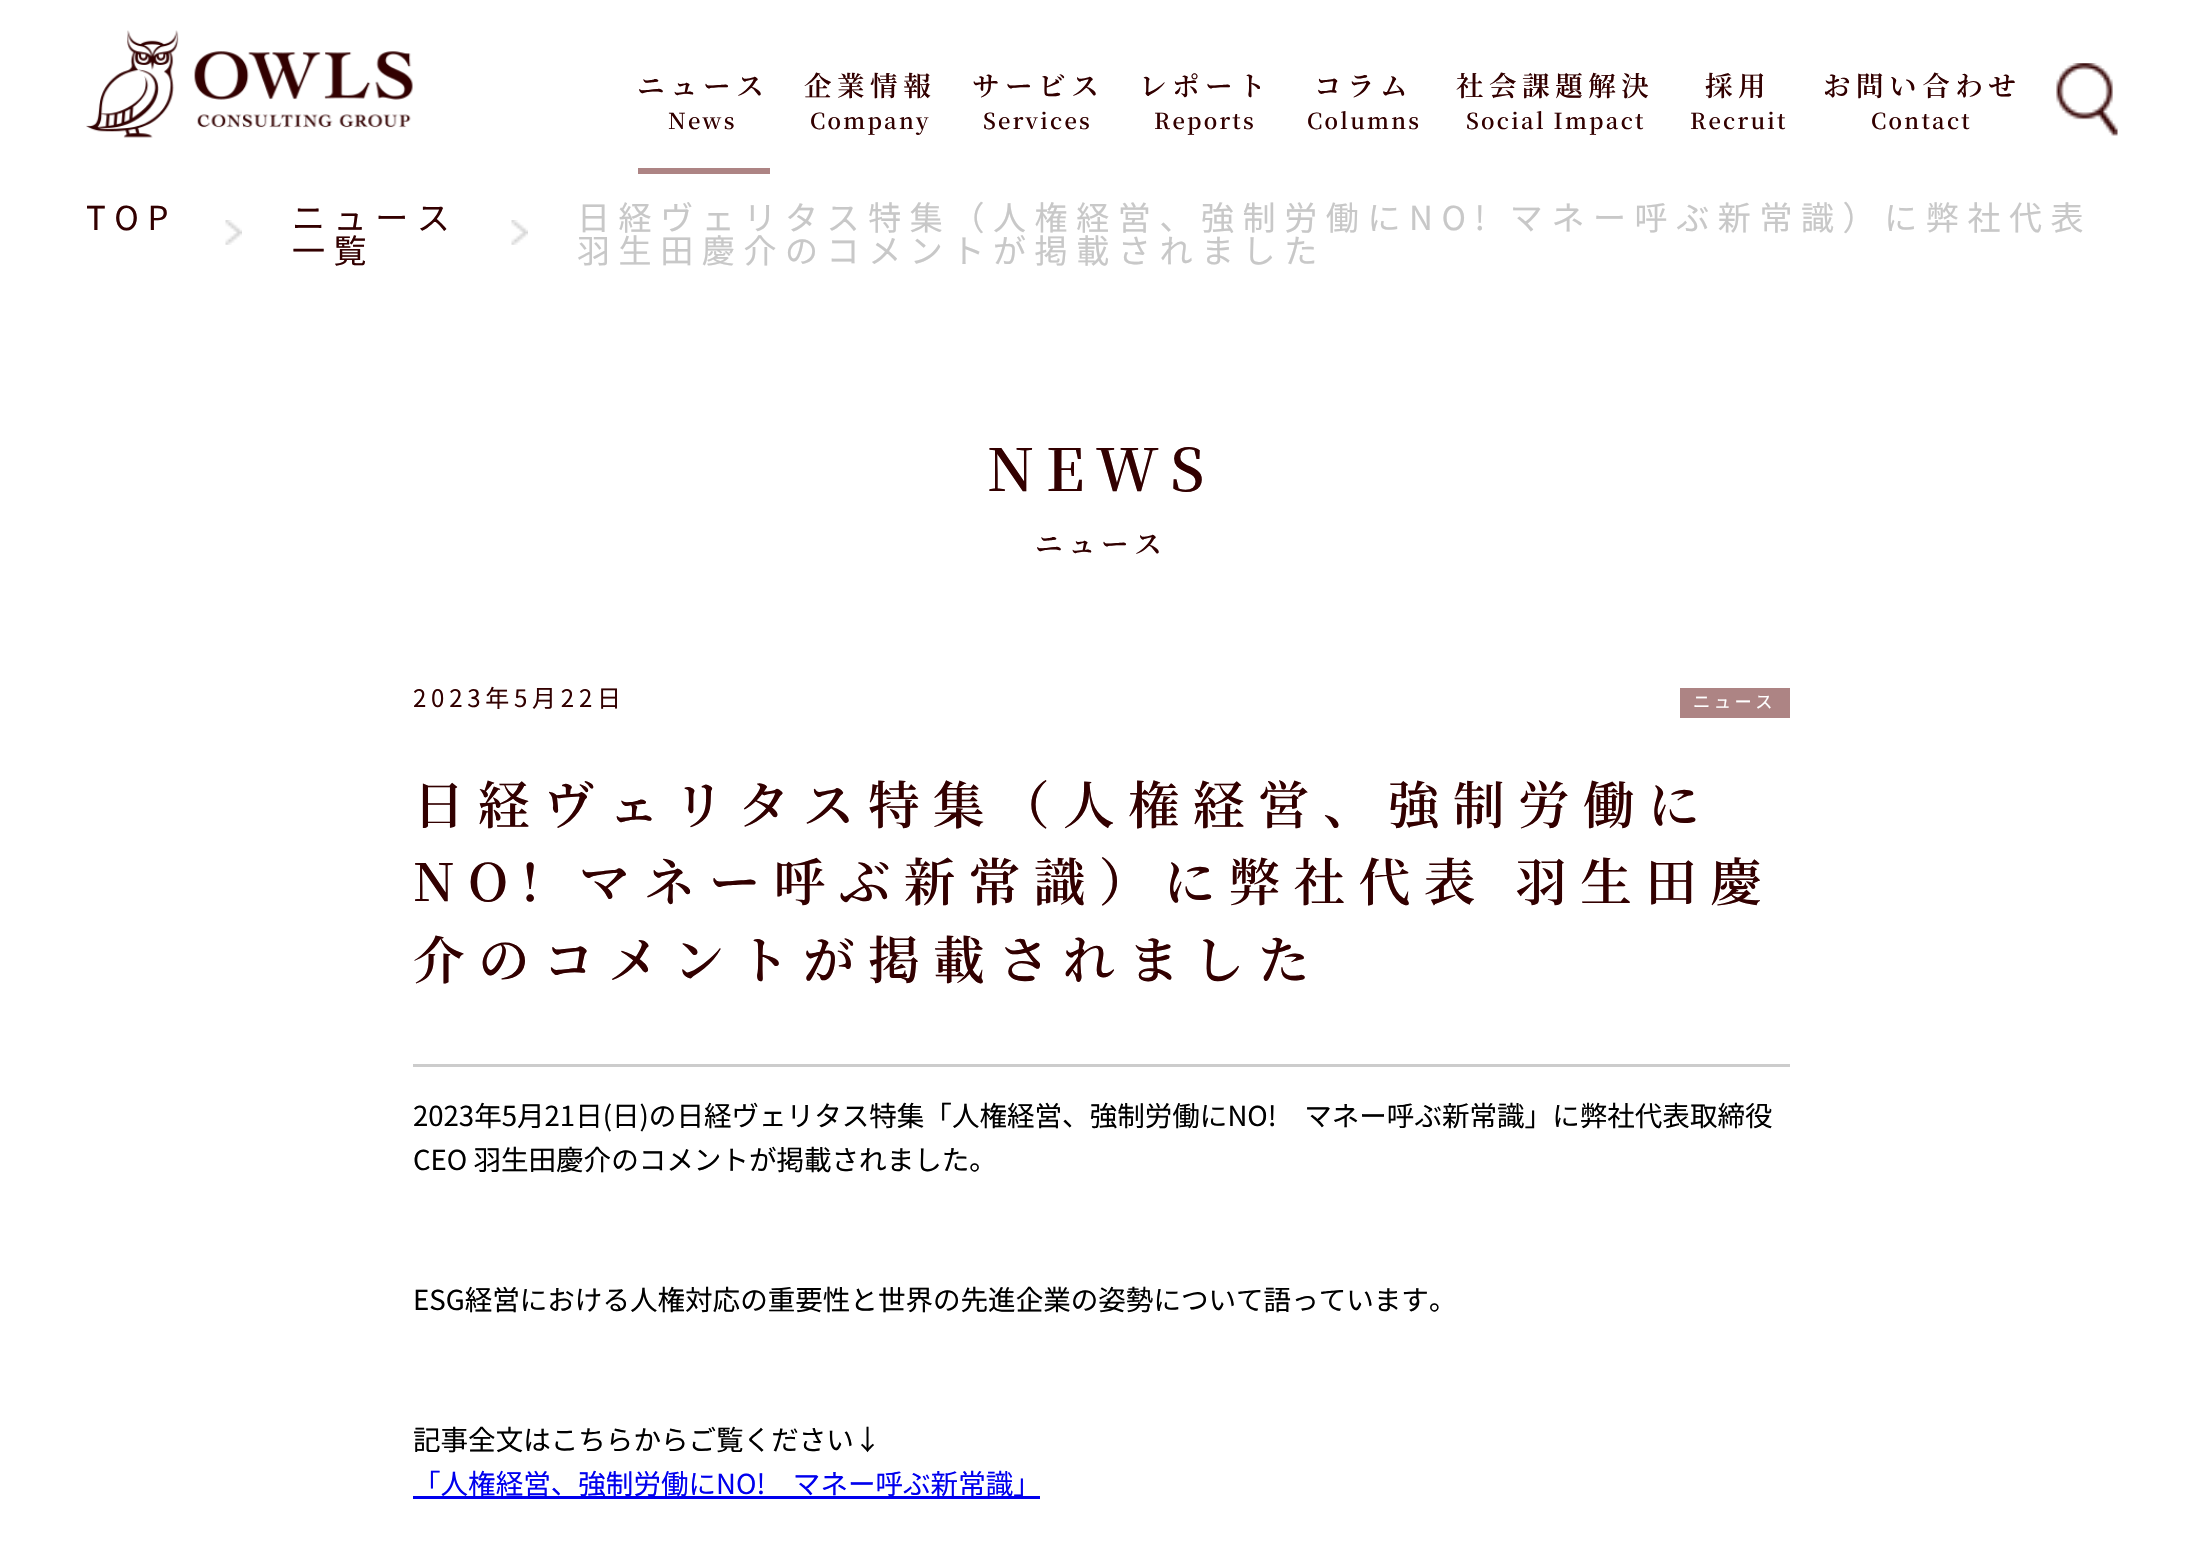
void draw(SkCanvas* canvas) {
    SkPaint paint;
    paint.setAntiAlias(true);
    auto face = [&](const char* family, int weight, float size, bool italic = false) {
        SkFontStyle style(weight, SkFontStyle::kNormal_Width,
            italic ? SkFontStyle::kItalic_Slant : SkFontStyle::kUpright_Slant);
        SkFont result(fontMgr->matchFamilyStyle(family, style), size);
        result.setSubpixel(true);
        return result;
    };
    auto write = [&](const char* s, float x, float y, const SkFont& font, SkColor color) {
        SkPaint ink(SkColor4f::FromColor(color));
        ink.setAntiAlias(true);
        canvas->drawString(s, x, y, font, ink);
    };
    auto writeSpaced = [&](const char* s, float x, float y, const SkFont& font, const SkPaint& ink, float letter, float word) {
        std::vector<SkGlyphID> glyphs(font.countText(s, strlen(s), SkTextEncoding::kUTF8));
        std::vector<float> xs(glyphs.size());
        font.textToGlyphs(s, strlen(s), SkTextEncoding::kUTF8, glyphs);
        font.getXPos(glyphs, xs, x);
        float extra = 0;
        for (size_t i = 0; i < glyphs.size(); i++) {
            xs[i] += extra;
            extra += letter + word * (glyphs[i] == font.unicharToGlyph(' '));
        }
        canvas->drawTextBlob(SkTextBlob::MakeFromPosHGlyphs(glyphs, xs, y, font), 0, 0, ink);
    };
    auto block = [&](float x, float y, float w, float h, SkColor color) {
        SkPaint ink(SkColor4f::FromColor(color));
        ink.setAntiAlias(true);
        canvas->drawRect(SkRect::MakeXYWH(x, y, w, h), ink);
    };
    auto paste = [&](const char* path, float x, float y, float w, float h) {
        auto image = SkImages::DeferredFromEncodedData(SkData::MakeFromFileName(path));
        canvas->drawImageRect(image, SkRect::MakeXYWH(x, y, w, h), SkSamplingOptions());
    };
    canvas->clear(SK_ColorWHITE);
    paste("pic1.png", 86, 30, 327, 108);
    auto kFont1 = face("Noto Serif JP", 600, 27.55f);
    paint.setColor(SkColorSetRGB(50, 0, 0));
    writeSpaced("ニュース", 637, 96, kFont1, paint, 5.5f, 0);
    auto kFont2 = face("Noto Serif JP", 600, 22);
    writeSpaced("News", 668, 129, kFont2, paint, 2.25f, 0);
    block(638, 168, 132, 6, SkColorSetRGB(173, 132, 132));
    writeSpaced("企業情報", 804, 96, kFont1, paint, 5.5f, 0);
    writeSpaced("Company", 810, 129, kFont2, paint, 2.25f, 0);
    writeSpaced("サービス", 972, 96, kFont1, paint, 5.5f, 0);
    writeSpaced("Services", 983, 129, kFont2, paint, 2.25f, 0);
    writeSpaced("レポート", 1139, 96, kFont1, paint, 5.5f, 0);
    writeSpaced("Reports", 1154, 129, kFont2, paint, 2.25f, 0);
    writeSpaced("コラム", 1314, 96, kFont1, paint, 5.5f, 0);
    writeSpaced("Columns", 1307, 129, kFont2, paint, 2.25f, 0);
    writeSpaced("社会課題解決", 1456, 96, kFont1, paint, 5.5f, 0);
    writeSpaced("Social Impact", 1466, 129, kFont2, paint, 2.25f, 0);
    writeSpaced("採用", 1705, 96, kFont1, paint, 5.5f, 0);
    writeSpaced("Recruit", 1690, 129, kFont2, paint, 2.25f, 0);
    writeSpaced("お問い合わせ", 1823, 96, kFont1, paint, 5.5f, 0);
    writeSpaced("Contact", 1871, 129, kFont2, paint, 2.25f, 0);
    paste("pic2.png", 2056, 63, 62, 73);
    paste("pic3.png", 225, 220, 17, 25);
    auto kFont3 = face("Noto Sans JP", 400, 33);
    writeSpaced("TOP", 86, 230, kFont3, paint, 8.6f, 0);
    paste("pic3.png", 511, 220, 17, 25);
    writeSpaced("ニュース", 292, 230, kFont3, paint, 8.6f, 0);
    writeSpaced("一覧", 292, 263, kFont3, paint, 8.6f, 0);
    paint.setColor(SkColorSetRGB(200, 200, 200));
    writeSpaced("日経ヴェリタス特集（人権経営、強制労働にNO! マネー呼ぶ新常識）に弊社代表", 577, 230, kFont3, paint, 8.6f, 0);
    writeSpaced("羽生田慶介のコメントが掲載されました", 577, 263, kFont3, paint, 8.6f, 0);
    auto kFont4 = face("Noto Serif JP", 600, 58.5f);
    paint.setColor(SkColorSetRGB(50, 0, 0));
    writeSpaced("NEWS", 987, 491, kFont4, paint, 11.5f, 0);
    writeSpaced("ニュース", 1035, 554, kFont1, paint, 5.5f, 0);
    block(413, 1064, 1377, 3, SkColorSetRGB(204, 204, 204));
    auto kFont5 = face("Noto Sans JP", 400, 24);
    writeSpaced("2023年5月22日", 413, 707, kFont5, paint, 4.75f, 0);
    block(1680, 688, 110, 30, SkColorSetRGB(173, 132, 132));
    auto kFont6 = face("Noto Sans JP", 400, 17.25f);
    paint.setColor(SK_ColorWHITE);
    writeSpaced("ニュース", 1693, 708, kFont6, paint, 3.5f, 0);
    auto kFont7 = face("Noto Serif JP", 600, 51.6f);
    paint.setColor(SkColorSetRGB(50, 0, 0));
    writeSpaced("日経ヴェリタス特集（人権経営、強制労働に", 413, 824, kFont7, paint, 13.4f, 0);
    writeSpaced("NO! マネー呼ぶ新常識）に弊社代表 羽生田慶", 413, 901, kFont7, paint, 13.4f, 0);
    writeSpaced("介のコメントが掲載されました", 413, 979, kFont7, paint, 13.4f, 0);
    auto kFont8 = face("Noto Sans JP", 400, 27.55f);
    write("2023年5月21日(日)の日経ヴェリタス特集「人権経営、強制労働にNO!　マネー呼ぶ新常識」に弊社代表取締役", 413, 1126, kFont8, SK_ColorBLACK);
    write("CEO 羽生田慶介のコメントが掲載されました。", 413, 1170, kFont8, SK_ColorBLACK);
    write("ESG経営における人権対応の重要性と世界の先進企業の姿勢について語っています。", 413, 1310, kFont8, SK_ColorBLACK);
    write("記事全文はこちらからご覧ください↓", 413, 1450, kFont8, SK_ColorBLACK);
    block(413, 1496, 627, 3, SkColorSetRGB(0, 0, 238));
    write("「人権経営、強制労働にNO!　マネー呼ぶ新常識」", 413, 1494, kFont8, SkColorSetRGB(0, 0, 238));
}
